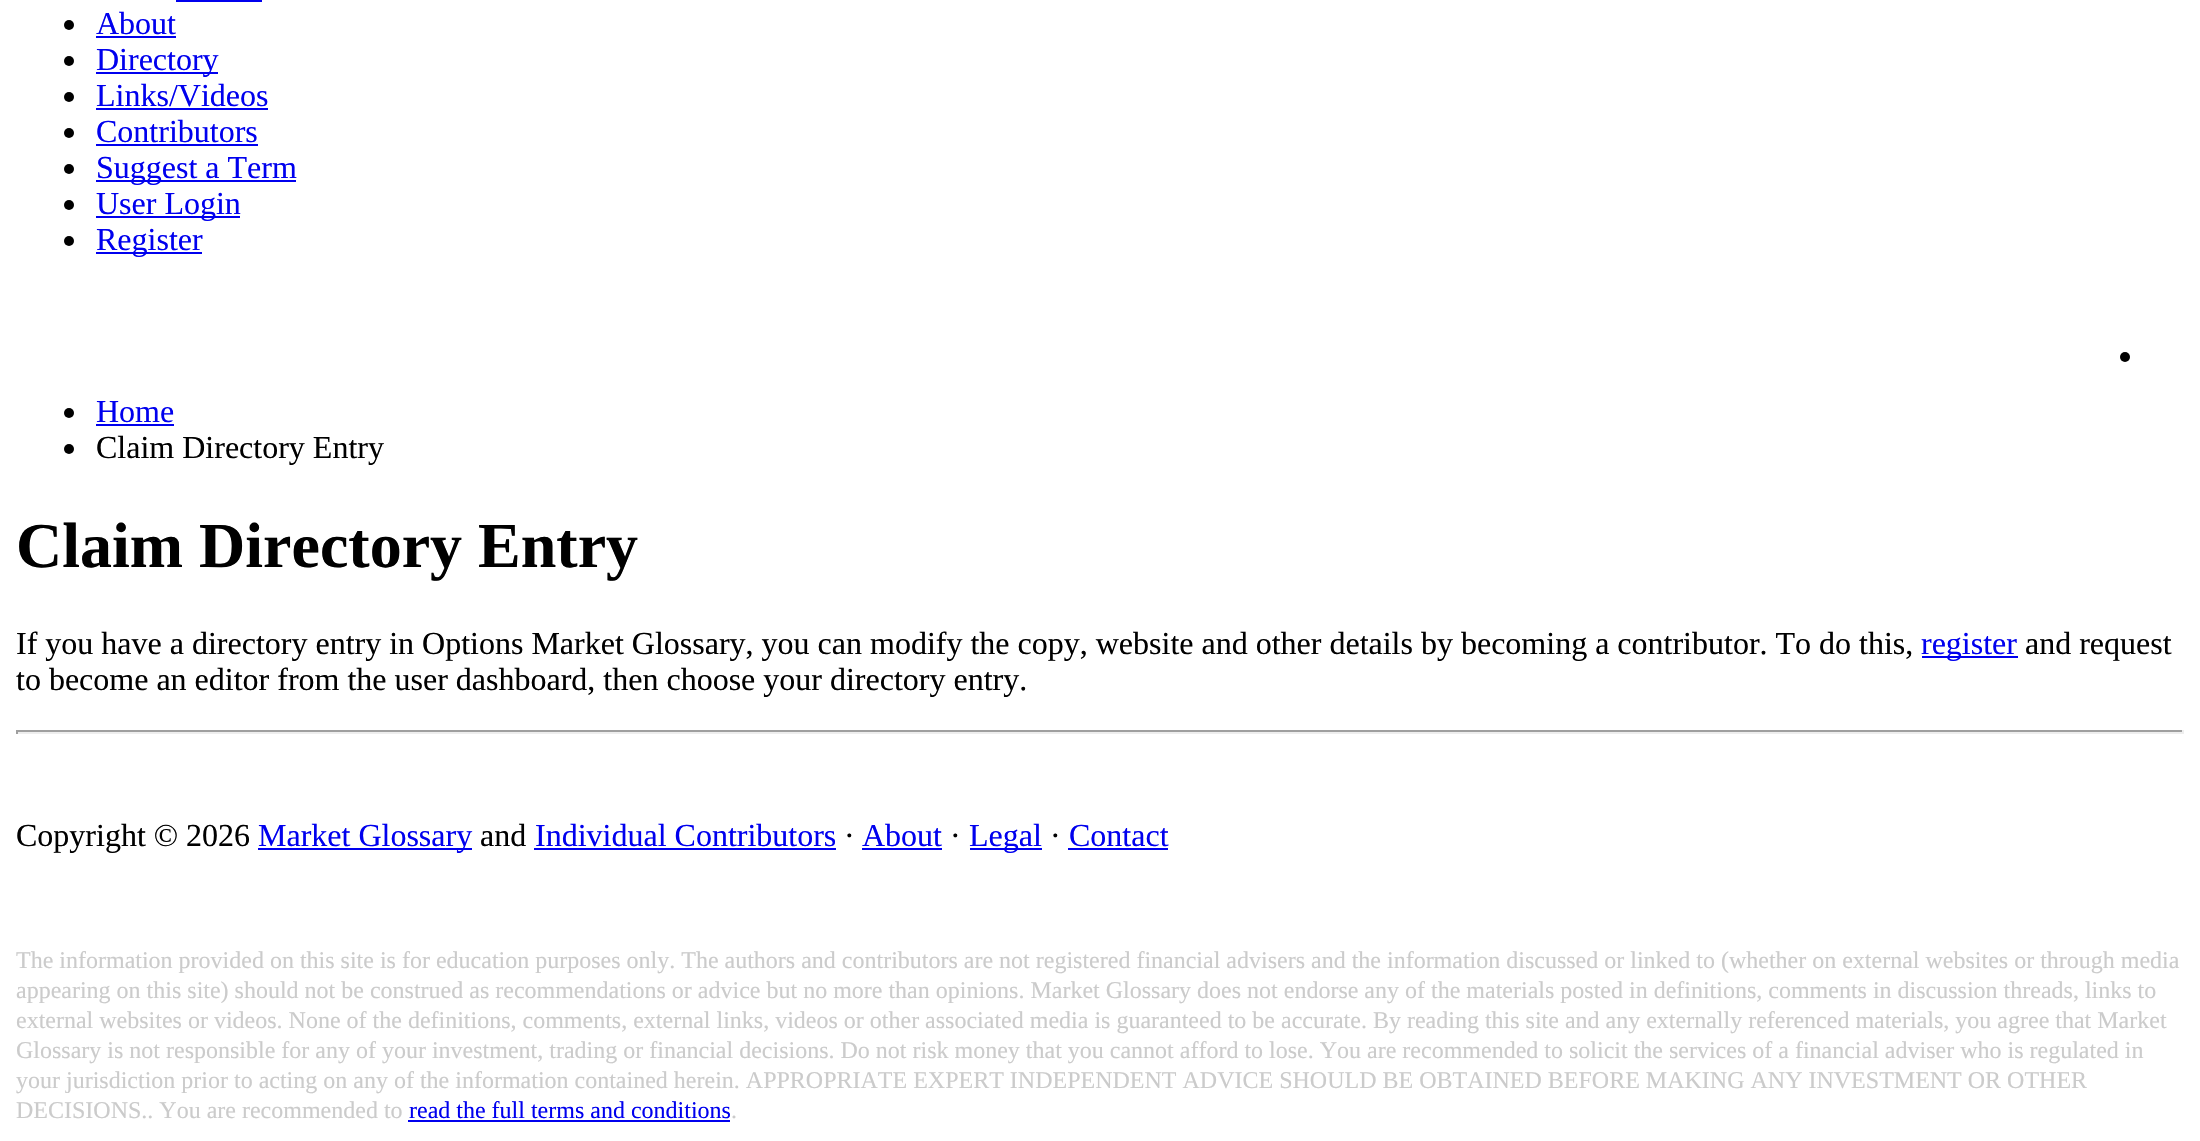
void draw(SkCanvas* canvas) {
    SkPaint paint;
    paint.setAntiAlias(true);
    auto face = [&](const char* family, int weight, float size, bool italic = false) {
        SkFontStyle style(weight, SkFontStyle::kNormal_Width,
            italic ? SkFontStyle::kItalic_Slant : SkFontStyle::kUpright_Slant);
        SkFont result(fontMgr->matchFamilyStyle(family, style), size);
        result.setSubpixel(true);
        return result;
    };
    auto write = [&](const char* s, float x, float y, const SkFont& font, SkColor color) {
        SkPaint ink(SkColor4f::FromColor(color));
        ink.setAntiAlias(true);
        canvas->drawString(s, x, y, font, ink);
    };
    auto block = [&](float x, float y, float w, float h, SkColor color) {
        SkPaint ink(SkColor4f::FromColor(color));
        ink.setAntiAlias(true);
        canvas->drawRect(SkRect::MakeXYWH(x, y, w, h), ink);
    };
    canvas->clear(SK_ColorWHITE);
    block(176, 0, 86, 2, SkColorSetRGB(0, 0, 238));
    paint.setColor(SK_ColorBLACK);
    canvas->drawCircle(69, 25, 5, paint);
    auto kFont1 = face("Liberation Serif", 400, 32);
    write("About", 96, 34, kFont1, SkColorSetRGB(0, 0, 238));
    block(96, 36, 80, 2, SkColorSetRGB(0, 0, 238));
    canvas->drawCircle(69, 61, 5, paint);
    block(96, 72, 122, 2, SkColorSetRGB(0, 0, 238));
    write("Directory", 96, 70, kFont1, SkColorSetRGB(0, 0, 238));
    canvas->drawCircle(69, 97, 5, paint);
    write("Links/Videos", 96, 106, kFont1, SkColorSetRGB(0, 0, 238));
    block(96, 108, 172, 2, SkColorSetRGB(0, 0, 238));
    canvas->drawCircle(69, 133, 5, paint);
    write("Contributors", 96, 142, kFont1, SkColorSetRGB(0, 0, 238));
    block(96, 144, 162, 2, SkColorSetRGB(0, 0, 238));
    canvas->drawCircle(69, 169, 5, paint);
    block(96, 180, 200, 2, SkColorSetRGB(0, 0, 238));
    write("Suggest a Term", 96, 178, kFont1, SkColorSetRGB(0, 0, 238));
    canvas->drawCircle(69, 205, 5, paint);
    block(96, 216, 144, 2, SkColorSetRGB(0, 0, 238));
    write("User Login", 96, 214, kFont1, SkColorSetRGB(0, 0, 238));
    canvas->drawCircle(69, 241, 5, paint);
    block(96, 252, 106, 2, SkColorSetRGB(0, 0, 238));
    write("Register", 96, 250, kFont1, SkColorSetRGB(0, 0, 238));
    canvas->drawCircle(2125, 357, 5, paint);
    canvas->drawCircle(69, 413, 5, paint);
    write("Home", 96, 422, kFont1, SkColorSetRGB(0, 0, 238));
    block(96, 424, 78, 2, SkColorSetRGB(0, 0, 238));
    canvas->drawCircle(69, 449, 5, paint);
    write("Claim Directory Entry", 96, 458, kFont1, SK_ColorBLACK);
    auto kFont2 = face("Liberation Serif", 700, 64);
    write("Claim Directory Entry", 16, 567, kFont2, SK_ColorBLACK);
    write("If you have a directory entry in Options Market Glossary, you can modify the copy, website and other details by becoming a contributor. To do this,", 16, 654, kFont1, SK_ColorBLACK);
    block(1922, 656, 96, 2, SkColorSetRGB(0, 0, 238));
    write("register", 1921, 654, kFont1, SkColorSetRGB(0, 0, 238));
    write("and request", 2025, 654, kFont1, SK_ColorBLACK);
    write("to become an editor from the user dashboard, then choose your directory entry.", 16, 690, kFont1, SK_ColorBLACK);
    block(16, 730, 2168, 2, SkColorSetRGB(159, 159, 159));
    block(2182, 730, 2, 4, SkColorSetRGB(238, 238, 238));
    block(16, 732, 2168, 2, SkColorSetRGB(238, 238, 238));
    block(16, 730, 2, 4, SkColorSetRGB(159, 159, 159));
    write("Copyright © 2026", 16, 846, kFont1, SK_ColorBLACK);
    block(258, 848, 214, 2, SkColorSetRGB(0, 0, 238));
    write("Market Glossary", 258, 846, kFont1, SkColorSetRGB(0, 0, 238));
    write("and", 480, 846, kFont1, SK_ColorBLACK);
    write("Individual Contributors", 535, 846, kFont1, SkColorSetRGB(0, 0, 238));
    block(534, 848, 302, 2, SkColorSetRGB(0, 0, 238));
    write("·", 844, 846, kFont1, SK_ColorBLACK);
    write("About", 862, 846, kFont1, SkColorSetRGB(0, 0, 238));
    block(862, 848, 80, 2, SkColorSetRGB(0, 0, 238));
    write("·", 950, 846, kFont1, SK_ColorBLACK);
    block(970, 848, 72, 2, SkColorSetRGB(0, 0, 238));
    write("Legal", 969, 846, kFont1, SkColorSetRGB(0, 0, 238));
    write("·", 1050, 846, kFont1, SK_ColorBLACK);
    write("Contact", 1069, 846, kFont1, SkColorSetRGB(0, 0, 238));
    block(1068, 848, 100, 2, SkColorSetRGB(0, 0, 238));
    auto kFont3 = face("Liberation Serif", 400, 24);
    write("The information provided on this site is for education purposes only. The authors and contributors are not registered financial advisers and the information discussed or linked to (whether on external websites or through media", 16, 968, kFont3, SkColorSetRGB(203, 203, 203));
    write("appearing on this site) should not be construed as recommendations or advice but no more than opinions. Market Glossary does not endorse any of the materials posted in definitions, comments in discussion threads, links to", 16, 998, kFont3, SkColorSetRGB(203, 203, 203));
    write("external websites or videos. None of the definitions, comments, external links, videos or other associated media is guaranteed to be accurate. By reading this site and any externally referenced materials, you agree that Market", 16, 1028, kFont3, SkColorSetRGB(203, 203, 203));
    write("Glossary is not responsible for any of your investment, trading or financial decisions. Do not risk money that you cannot afford to lose. You are recommended to solicit the services of a financial adviser who is regulated in", 16, 1058, kFont3, SkColorSetRGB(203, 203, 203));
    write("your jurisdiction prior to acting on any of the information contained herein. APPROPRIATE EXPERT INDEPENDENT ADVICE SHOULD BE OBTAINED BEFORE MAKING ANY INVESTMENT OR OTHER", 16, 1088, kFont3, SkColorSetRGB(203, 203, 203));
    write("DECISIONS.. You are recommended to", 16, 1118, kFont3, SkColorSetRGB(203, 203, 203));
    write("read the full terms and conditions", 409, 1118, kFont3, SkColorSetRGB(0, 0, 238));
    block(408, 1120, 322, 2, SkColorSetRGB(0, 0, 238));
    write(".", 731, 1118, kFont3, SkColorSetRGB(203, 203, 203));
}
